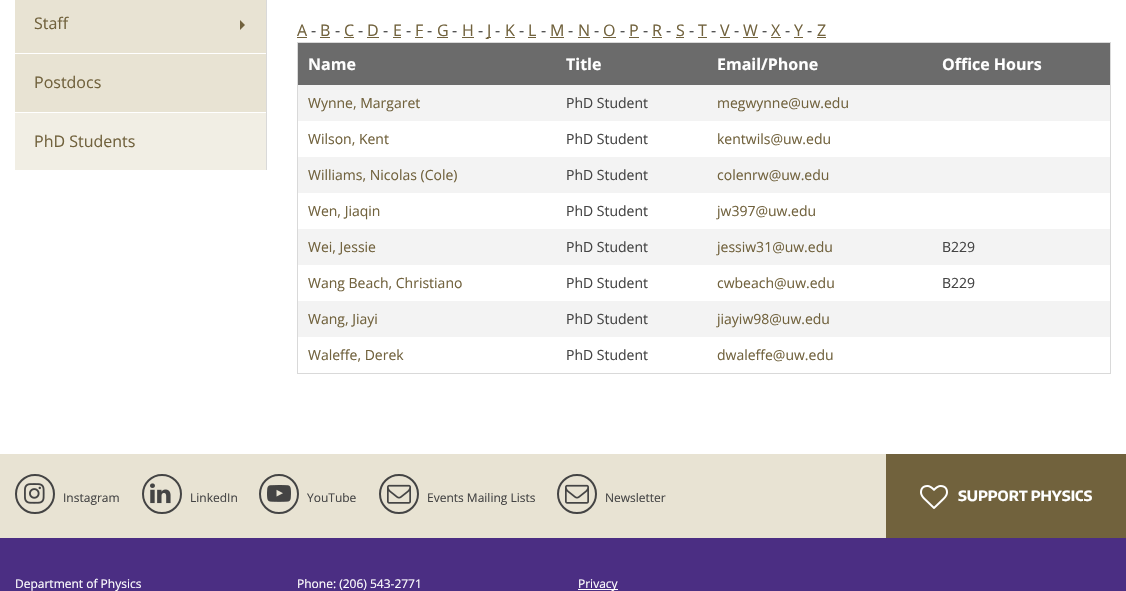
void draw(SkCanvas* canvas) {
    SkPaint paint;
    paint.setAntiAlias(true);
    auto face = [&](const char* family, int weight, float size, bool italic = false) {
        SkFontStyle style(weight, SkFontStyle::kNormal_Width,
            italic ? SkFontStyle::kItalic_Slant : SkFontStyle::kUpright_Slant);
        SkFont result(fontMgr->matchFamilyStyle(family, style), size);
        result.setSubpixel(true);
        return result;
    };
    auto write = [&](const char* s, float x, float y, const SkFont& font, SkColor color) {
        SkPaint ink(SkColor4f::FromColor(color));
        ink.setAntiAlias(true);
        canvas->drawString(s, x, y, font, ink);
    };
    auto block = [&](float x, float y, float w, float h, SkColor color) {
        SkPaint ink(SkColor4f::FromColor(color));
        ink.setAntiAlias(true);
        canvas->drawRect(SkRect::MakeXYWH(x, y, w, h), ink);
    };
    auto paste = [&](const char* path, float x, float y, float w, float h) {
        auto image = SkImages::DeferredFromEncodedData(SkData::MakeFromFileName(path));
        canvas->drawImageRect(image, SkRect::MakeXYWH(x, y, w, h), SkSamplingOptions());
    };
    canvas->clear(SK_ColorWHITE);
    block(15, 0, 251, 112, SkColorSetRGB(232, 227, 211));
    block(266, 0, 1, 170, SkColorSetRGB(217, 217, 217));
    auto kFont1 = face("Open Sans", 400, 16);
    write("Staff", 34, 29, kFont1, SkColorSetRGB(113, 98, 61));
    paint.setColor(SkColorSetRGB(113, 98, 61));
    canvas->drawPath(SkPathBuilder().moveTo(240, 30).lineTo(240, 20).lineTo(245, 25).close().detach(), paint);
    block(15, 53, 251, 1, SK_ColorWHITE);
    write("Postdocs", 34, 88, kFont1, SkColorSetRGB(113, 98, 61));
    block(15, 113, 251, 57, SkColorSetRGB(241, 238, 228));
    write("PhD Students", 34, 147, kFont1, SkColorSetRGB(113, 98, 61));
    write("A", 297, 36, kFont1, SkColorSetRGB(113, 98, 61));
    block(297, 37, 10, 1, SkColorSetRGB(113, 98, 61));
    write("-", 311, 36, kFont1, SkColorSetRGB(68, 68, 68));
    block(320, 37, 10, 1, SkColorSetRGB(113, 98, 61));
    write("B", 320, 36, kFont1, SkColorSetRGB(113, 98, 61));
    write("-", 335, 36, kFont1, SkColorSetRGB(68, 68, 68));
    write("C", 344, 36, kFont1, SkColorSetRGB(113, 98, 61));
    block(344, 37, 10, 1, SkColorSetRGB(113, 98, 61));
    write("-", 358, 36, kFont1, SkColorSetRGB(68, 68, 68));
    block(367, 37, 12, 1, SkColorSetRGB(113, 98, 61));
    write("D", 367, 36, kFont1, SkColorSetRGB(113, 98, 61));
    write("-", 383, 36, kFont1, SkColorSetRGB(68, 68, 68));
    write("E", 393, 36, kFont1, SkColorSetRGB(113, 98, 61));
    block(393, 37, 8, 1, SkColorSetRGB(113, 98, 61));
    write("-", 406, 36, kFont1, SkColorSetRGB(68, 68, 68));
    block(415, 37, 8, 1, SkColorSetRGB(113, 98, 61));
    write("F", 415, 36, kFont1, SkColorSetRGB(113, 98, 61));
    write("-", 427, 36, kFont1, SkColorSetRGB(68, 68, 68));
    write("G", 437, 36, kFont1, SkColorSetRGB(113, 98, 61));
    block(437, 37, 11, 1, SkColorSetRGB(113, 98, 61));
    write("-", 452, 36, kFont1, SkColorSetRGB(68, 68, 68));
    write("H", 462, 36, kFont1, SkColorSetRGB(113, 98, 61));
    block(462, 37, 12, 1, SkColorSetRGB(113, 98, 61));
    write("-", 478, 36, kFont1, SkColorSetRGB(68, 68, 68));
    block(487, 37, 4, 1, SkColorSetRGB(113, 98, 61));
    write("J", 487, 36, kFont1, SkColorSetRGB(113, 98, 61));
    write("-", 495, 36, kFont1, SkColorSetRGB(68, 68, 68));
    write("K", 505, 36, kFont1, SkColorSetRGB(113, 98, 61));
    block(505, 37, 10, 1, SkColorSetRGB(113, 98, 61));
    write("-", 519, 36, kFont1, SkColorSetRGB(68, 68, 68));
    block(528, 37, 8, 1, SkColorSetRGB(113, 98, 61));
    write("L", 528, 36, kFont1, SkColorSetRGB(113, 98, 61));
    write("-", 541, 36, kFont1, SkColorSetRGB(68, 68, 68));
    block(550, 37, 14, 1, SkColorSetRGB(113, 98, 61));
    write("M", 550, 36, kFont1, SkColorSetRGB(113, 98, 61));
    write("-", 568, 36, kFont1, SkColorSetRGB(68, 68, 68));
    write("N", 578, 36, kFont1, SkColorSetRGB(113, 98, 61));
    block(578, 37, 12, 1, SkColorSetRGB(113, 98, 61));
    write("-", 594, 36, kFont1, SkColorSetRGB(68, 68, 68));
    write("O", 603, 36, kFont1, SkColorSetRGB(113, 98, 61));
    block(603, 37, 13, 1, SkColorSetRGB(113, 98, 61));
    write("-", 620, 36, kFont1, SkColorSetRGB(68, 68, 68));
    block(629, 37, 10, 1, SkColorSetRGB(113, 98, 61));
    write("P", 629, 36, kFont1, SkColorSetRGB(113, 98, 61));
    write("-", 643, 36, kFont1, SkColorSetRGB(68, 68, 68));
    block(652, 37, 10, 1, SkColorSetRGB(113, 98, 61));
    write("R", 652, 36, kFont1, SkColorSetRGB(113, 98, 61));
    write("-", 666, 36, kFont1, SkColorSetRGB(68, 68, 68));
    write("S", 676, 36, kFont1, SkColorSetRGB(113, 98, 61));
    block(676, 37, 8, 1, SkColorSetRGB(113, 98, 61));
    write("-", 689, 36, kFont1, SkColorSetRGB(68, 68, 68));
    block(698, 37, 9, 1, SkColorSetRGB(113, 98, 61));
    write("T", 698, 36, kFont1, SkColorSetRGB(113, 98, 61));
    write("-", 711, 36, kFont1, SkColorSetRGB(68, 68, 68));
    block(720, 37, 10, 1, SkColorSetRGB(113, 98, 61));
    write("V", 720, 36, kFont1, SkColorSetRGB(113, 98, 61));
    write("-", 734, 36, kFont1, SkColorSetRGB(68, 68, 68));
    block(743, 37, 15, 1, SkColorSetRGB(113, 98, 61));
    write("W", 743, 36, kFont1, SkColorSetRGB(113, 98, 61));
    write("-", 762, 36, kFont1, SkColorSetRGB(68, 68, 68));
    block(771, 37, 10, 1, SkColorSetRGB(113, 98, 61));
    write("X", 771, 36, kFont1, SkColorSetRGB(113, 98, 61));
    write("-", 785, 36, kFont1, SkColorSetRGB(68, 68, 68));
    block(794, 37, 9, 1, SkColorSetRGB(113, 98, 61));
    write("Y", 794, 36, kFont1, SkColorSetRGB(113, 98, 61));
    write("-", 807, 36, kFont1, SkColorSetRGB(68, 68, 68));
    write("Z", 817, 36, kFont1, SkColorSetRGB(113, 98, 61));
    block(817, 37, 9, 1, SkColorSetRGB(113, 98, 61));
    block(298, 85, 812, 252, SkColorSetRGB(243, 243, 243));
    block(297, 42, 814, 1, SkColorSetRGB(217, 217, 217));
    block(1110, 42, 1, 332, SkColorSetRGB(217, 217, 217));
    block(297, 373, 814, 1, SkColorSetRGB(217, 217, 217));
    block(297, 42, 1, 332, SkColorSetRGB(217, 217, 217));
    block(298, 43, 812, 42, SkColorSetRGB(107, 107, 107));
    auto kFont2 = face("Open Sans", 700, 16);
    write("Name", 308, 70, kFont2, SK_ColorWHITE);
    write("Title", 566, 70, kFont2, SK_ColorWHITE);
    write("Email/Phone", 717, 70, kFont2, SK_ColorWHITE);
    write("Office Hours", 942, 70, kFont2, SK_ColorWHITE);
    auto kFont3 = face("Open Sans", 400, 14);
    write("Wynne, Margaret", 308, 108, kFont3, SkColorSetRGB(113, 98, 61));
    write("PhD Student", 566, 108, kFont3, SkColorSetRGB(68, 68, 68));
    write("megwynne@uw.edu", 717, 108, kFont3, SkColorSetRGB(113, 98, 61));
    block(298, 121, 812, 36, SK_ColorWHITE);
    write("Wilson, Kent", 308, 144, kFont3, SkColorSetRGB(113, 98, 61));
    write("PhD Student", 566, 144, kFont3, SkColorSetRGB(68, 68, 68));
    write("kentwils@uw.edu", 717, 144, kFont3, SkColorSetRGB(113, 98, 61));
    write("Williams, Nicolas (Cole)", 308, 180, kFont3, SkColorSetRGB(113, 98, 61));
    write("PhD Student", 566, 180, kFont3, SkColorSetRGB(68, 68, 68));
    write("colenrw@uw.edu", 717, 180, kFont3, SkColorSetRGB(113, 98, 61));
    block(298, 193, 812, 36, SK_ColorWHITE);
    write("Wen, Jiaqin", 308, 216, kFont3, SkColorSetRGB(113, 98, 61));
    write("PhD Student", 566, 216, kFont3, SkColorSetRGB(68, 68, 68));
    write("jw397@uw.edu", 717, 216, kFont3, SkColorSetRGB(113, 98, 61));
    write("Wei, Jessie", 308, 252, kFont3, SkColorSetRGB(113, 98, 61));
    write("PhD Student", 566, 252, kFont3, SkColorSetRGB(68, 68, 68));
    write("jessiw31@uw.edu", 717, 252, kFont3, SkColorSetRGB(113, 98, 61));
    write("B229", 942, 252, kFont3, SkColorSetRGB(68, 68, 68));
    block(298, 265, 812, 36, SK_ColorWHITE);
    write("Wang Beach, Christiano", 308, 288, kFont3, SkColorSetRGB(113, 98, 61));
    write("PhD Student", 566, 288, kFont3, SkColorSetRGB(68, 68, 68));
    write("cwbeach@uw.edu", 717, 288, kFont3, SkColorSetRGB(113, 98, 61));
    write("B229", 942, 288, kFont3, SkColorSetRGB(68, 68, 68));
    write("Wang, Jiayi", 308, 324, kFont3, SkColorSetRGB(113, 98, 61));
    write("PhD Student", 566, 324, kFont3, SkColorSetRGB(68, 68, 68));
    write("jiayiw98@uw.edu", 717, 324, kFont3, SkColorSetRGB(113, 98, 61));
    write("Waleffe, Derek", 308, 360, kFont3, SkColorSetRGB(113, 98, 61));
    write("PhD Student", 566, 360, kFont3, SkColorSetRGB(68, 68, 68));
    write("dwaleffe@uw.edu", 717, 360, kFont3, SkColorSetRGB(113, 98, 61));
    block(0, 454, 886, 84, SkColorSetRGB(232, 227, 211));
    paint.setStyle(SkPaint::kStroke_Style);
    paint.setStrokeWidth(2);
    paint.setColor(SkColorSetRGB(68, 68, 68));
    canvas->drawCircle(35, 494, 19, paint);
    paste("pic1.png", 24, 483, 21, 21);
    auto kFont4 = face("Open Sans", 400, 12);
    write("Instagram", 63, 502, kFont4, SkColorSetRGB(68, 68, 68));
    canvas->drawCircle(162, 494, 19, paint);
    paste("pic2.png", 150, 483, 21, 21);
    write("LinkedIn", 190, 502, kFont4, SkColorSetRGB(68, 68, 68));
    canvas->drawCircle(279, 494, 19, paint);
    paste("pic3.png", 267, 485, 24, 17);
    write("YouTube", 307, 502, kFont4, SkColorSetRGB(68, 68, 68));
    canvas->drawCircle(399, 494, 19, paint);
    paste("pic4.png", 387, 484, 24, 20);
    write("Events Mailing Lists", 427, 502, kFont4, SkColorSetRGB(68, 68, 68));
    canvas->drawCircle(577, 494, 19, paint);
    paste("pic4.png", 565, 484, 24, 20);
    write("Newsletter", 605, 502, kFont4, SkColorSetRGB(68, 68, 68));
    block(886, 454, 240, 84, SkColorSetRGB(113, 98, 61));
    paste("pic5.png", 920, 485, 28, 24);
    auto kFont5 = face("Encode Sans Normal", 700, 14);
    write("SUPPORT PHYSICS", 958, 501, kFont5, SK_ColorWHITE);
    block(0, 538, 1126, 53, SkColorSetRGB(75, 46, 131));
    write("Department of Physics", 15, 588, kFont4, SK_ColorWHITE);
    write("Phone: (206) 543-2771", 297, 588, kFont4, SK_ColorWHITE);
    block(578, 589, 40, 1, SK_ColorWHITE);
    write("Privacy", 578, 588, kFont4, SK_ColorWHITE);
}
